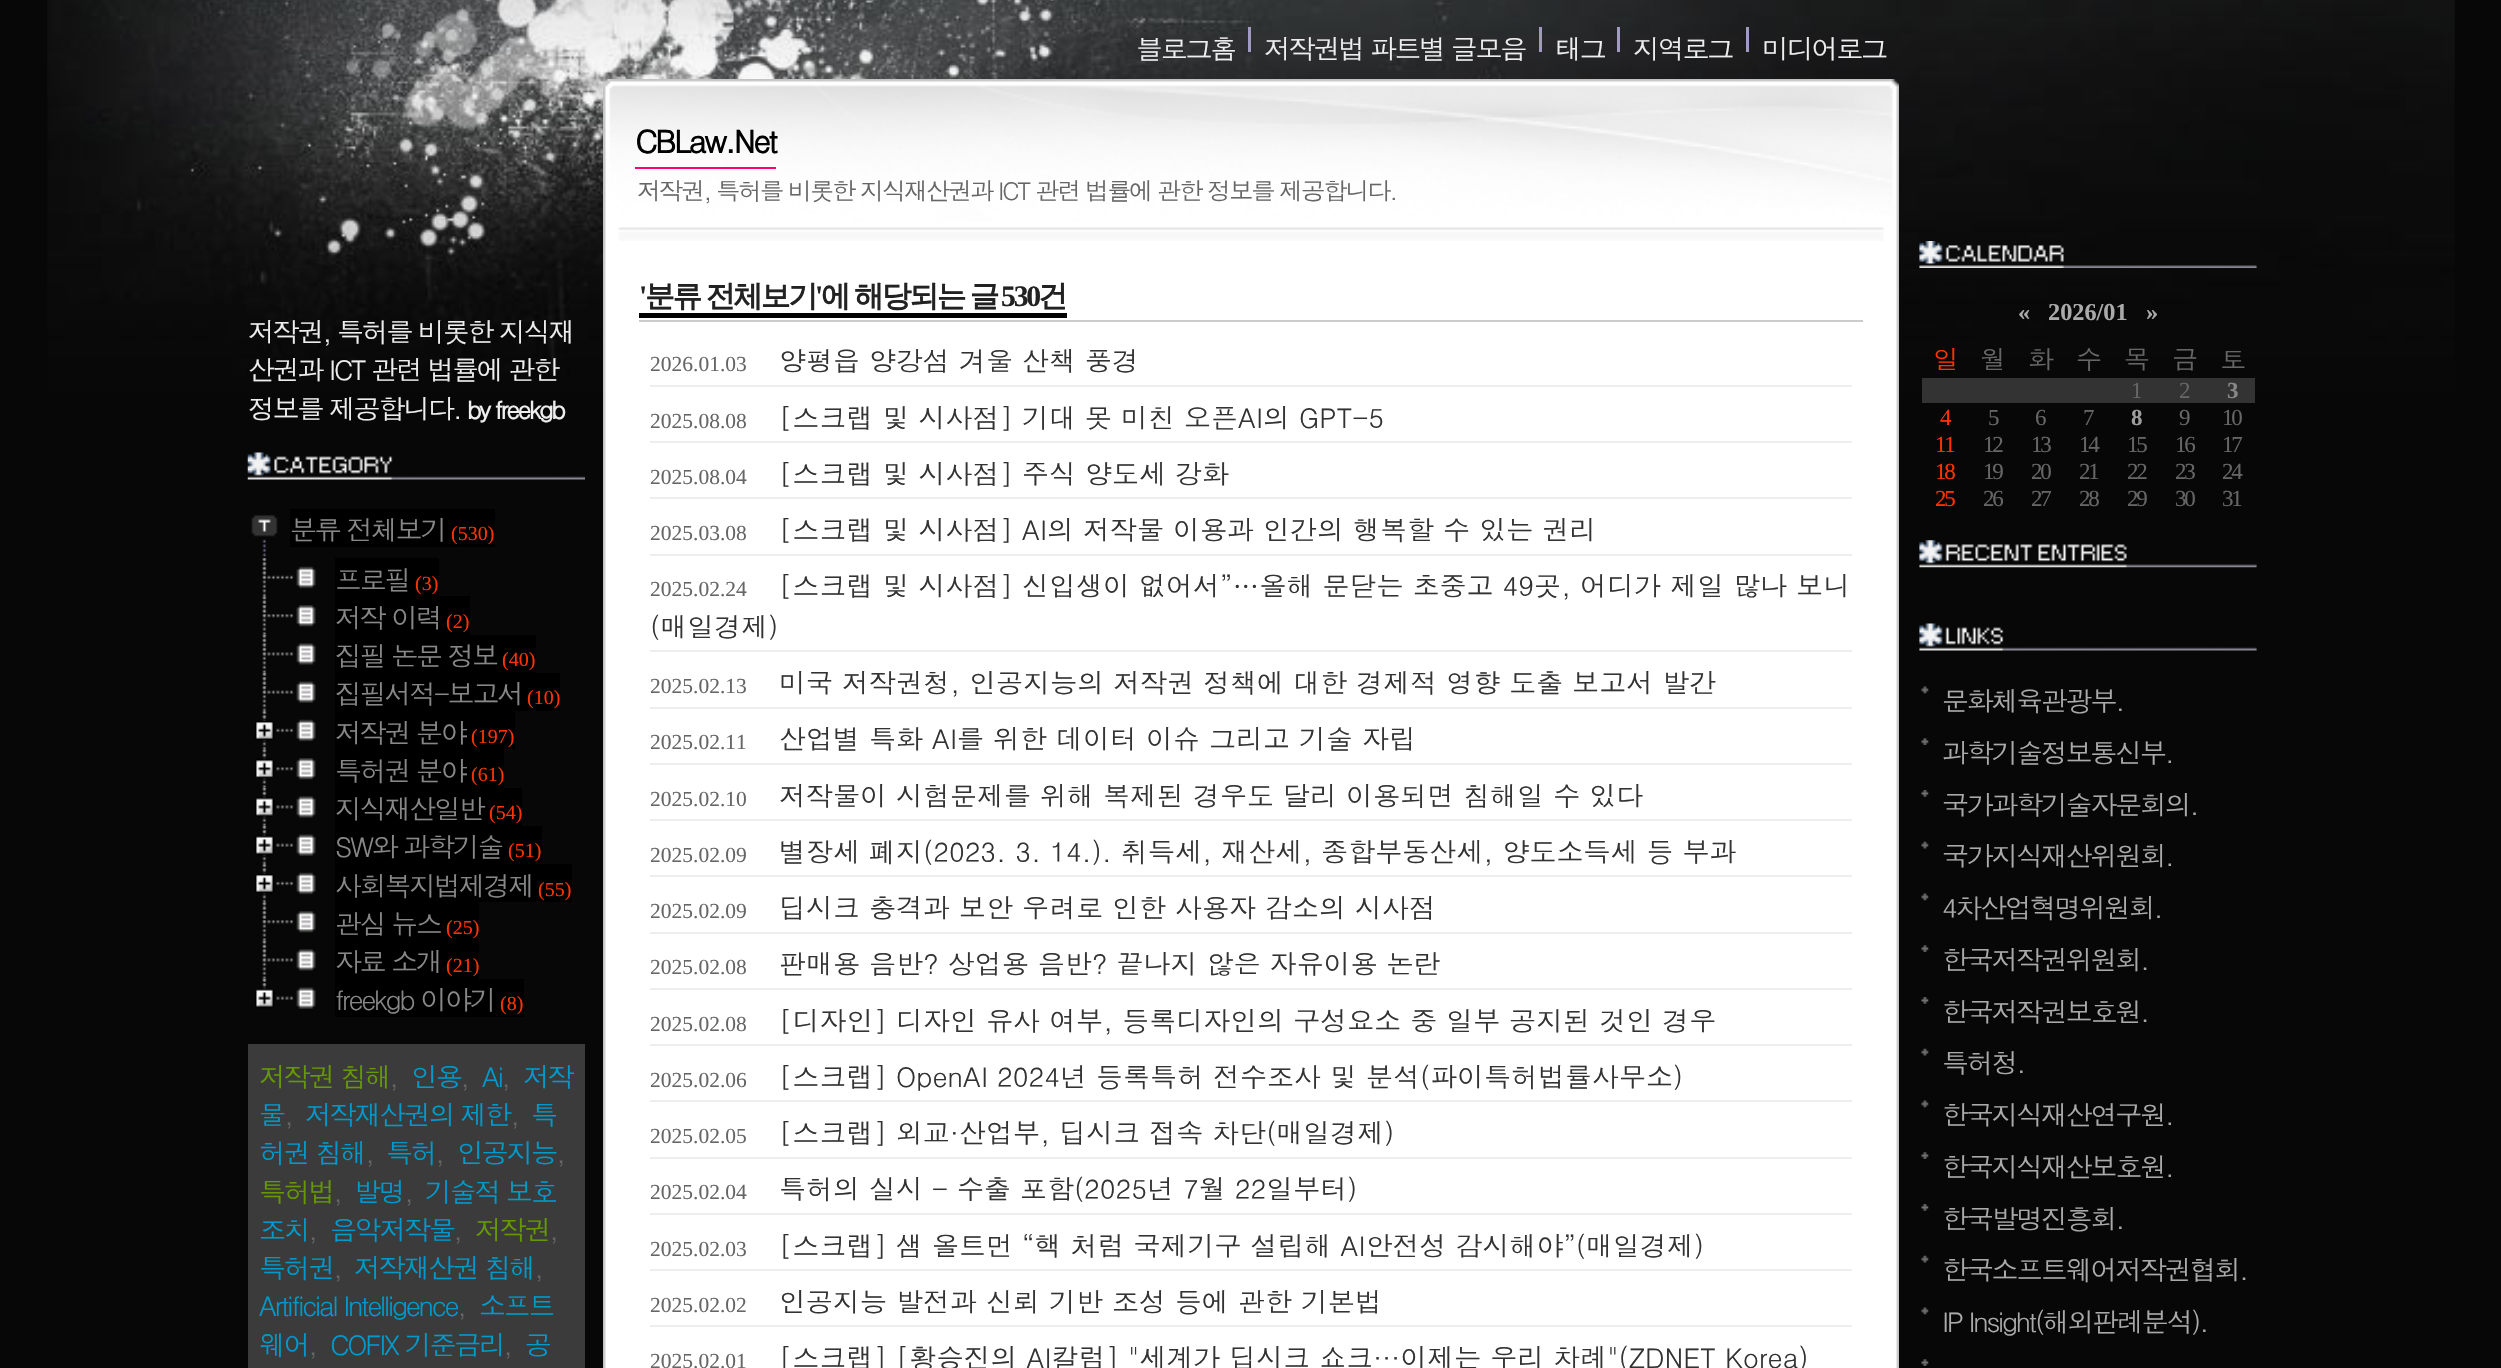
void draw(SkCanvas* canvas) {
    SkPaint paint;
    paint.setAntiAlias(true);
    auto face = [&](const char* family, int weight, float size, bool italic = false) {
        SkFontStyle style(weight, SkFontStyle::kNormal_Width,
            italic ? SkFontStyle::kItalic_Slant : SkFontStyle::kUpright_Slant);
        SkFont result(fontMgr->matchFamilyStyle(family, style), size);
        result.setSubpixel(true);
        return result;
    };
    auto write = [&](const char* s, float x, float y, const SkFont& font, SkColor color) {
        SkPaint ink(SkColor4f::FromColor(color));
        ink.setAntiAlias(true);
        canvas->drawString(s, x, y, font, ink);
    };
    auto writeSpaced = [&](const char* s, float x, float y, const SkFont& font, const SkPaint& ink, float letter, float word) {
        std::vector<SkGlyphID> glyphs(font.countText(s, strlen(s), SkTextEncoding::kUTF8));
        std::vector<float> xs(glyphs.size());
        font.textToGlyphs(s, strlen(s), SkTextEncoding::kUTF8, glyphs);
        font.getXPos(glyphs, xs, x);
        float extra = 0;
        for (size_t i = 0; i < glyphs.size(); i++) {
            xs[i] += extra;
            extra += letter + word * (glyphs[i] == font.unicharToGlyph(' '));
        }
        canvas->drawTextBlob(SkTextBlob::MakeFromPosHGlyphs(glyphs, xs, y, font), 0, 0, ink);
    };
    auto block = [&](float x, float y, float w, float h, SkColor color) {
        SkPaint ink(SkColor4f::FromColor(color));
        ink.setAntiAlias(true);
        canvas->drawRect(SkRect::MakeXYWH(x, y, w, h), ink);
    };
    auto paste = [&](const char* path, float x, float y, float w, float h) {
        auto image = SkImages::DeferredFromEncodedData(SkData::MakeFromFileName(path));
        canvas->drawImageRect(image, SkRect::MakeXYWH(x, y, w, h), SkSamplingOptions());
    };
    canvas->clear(SkColorSetRGB(7, 7, 7));
    paste("pic1.png", 47, 0, 2408, 455);
    paste("pic2.png", 603, 79, 1296, 162);
    auto kFont1 = face("Dotum", 400, 27);
    paint.setColor(SkColorSetRGB(238, 238, 238));
    writeSpaced("블로그홈", 1136, 59, kFont1, paint, -2.25f, 0);
    writeSpaced("저작권법 파트별 글모음", 1264, 59, kFont1, paint, -2.25f, 0);
    block(1248, 27, 3, 25, SkColorSetRGB(161, 155, 196));
    writeSpaced("태그", 1555, 59, kFont1, paint, -2.25f, 0);
    block(1539, 27, 3, 25, SkColorSetRGB(161, 155, 196));
    writeSpaced("지역로그", 1633, 59, kFont1, paint, -2.25f, 0);
    block(1617, 27, 3, 25, SkColorSetRGB(161, 155, 196));
    writeSpaced("미디어로그", 1762, 59, kFont1, paint, -2.25f, 0);
    block(1746, 27, 3, 25, SkColorSetRGB(161, 155, 196));
    auto kFont2 = face("Dotum", 700, 31);
    paint.setColor(SK_ColorBLACK);
    writeSpaced("CBLaw.Net", 635, 153, kFont2, paint, -2.25f, 0);
    block(635, 167, 141, 2, SkColorSetRGB(255, 0, 114));
    auto kFont3 = face("Dotum", 400, 24.3f);
    paint.setColor(SkColorSetRGB(102, 102, 102));
    writeSpaced("저작권, 특허를 비롯한 지식재산권과 ICT 관련 법률에 관한 정보를 제공합니다.", 637, 200, kFont3, paint, -2.25f, 0);
    paint.setColor(SkColorSetRGB(238, 238, 238));
    writeSpaced("저작권, 특허를 비롯한 지식재", 248, 342, kFont1, paint, -2.25f, 0);
    writeSpaced("산권과 ICT 관련 법률에 관한", 248, 380, kFont1, paint, -2.25f, 0);
    writeSpaced("정보를 제공합니다.", 248, 419, kFont1, paint, -2.25f, 0);
    auto kFont4 = face("Dotum", 700, 24.3f);
    writeSpaced("by freekgb", 467, 419, kFont4, paint, -2.25f, 0);
    paste("pic3.png", 247, 452, 338, 28);
    paste("pic4.png", 251, 515, 27, 42);
    block(290, 509, 205, 38, SK_ColorBLACK);
    paint.setColor(SkColorSetRGB(135, 135, 135));
    writeSpaced("분류 전체보기", 290, 540, kFont1, paint, -2.25f, 0);
    auto kFont5 = face("Liberation Serif", 400, 20);
    write("(530)", 451, 540, kFont5, SkColorSetRGB(255, 51, 0));
    paste("pic5.png", 262, 558, 5, 39);
    paste("pic6.png", 262, 558, 54, 31);
    block(335, 558, 104, 38, SK_ColorBLACK);
    writeSpaced("프로필", 335, 590, kFont1, paint, -2.25f, 0);
    write("(3)", 415, 590, kFont5, SkColorSetRGB(255, 51, 0));
    paste("pic7.png", 262, 596, 5, 39);
    paste("pic8.png", 262, 596, 54, 31);
    block(335, 596, 135, 39, SK_ColorBLACK);
    writeSpaced("저작 이력", 335, 628, kFont1, paint, -2.25f, 0);
    write("(2)", 446, 628, kFont5, SkColorSetRGB(255, 51, 0));
    paste("pic9.png", 262, 634, 5, 39);
    paste("pic10.png", 262, 634, 54, 31);
    block(335, 635, 201, 38, SK_ColorBLACK);
    writeSpaced("집필 논문 정보", 335, 666, kFont1, paint, -2.25f, 0);
    write("(40)", 502, 666, kFont5, SkColorSetRGB(255, 51, 0));
    paste("pic11.png", 262, 673, 5, 39);
    paste("pic12.png", 262, 673, 54, 30);
    block(335, 673, 225, 38, SK_ColorBLACK);
    writeSpaced("집필서적-보고서", 335, 704, kFont1, paint, -2.25f, 0);
    write("(10)", 527, 704, kFont5, SkColorSetRGB(255, 51, 0));
    paste("pic13.png", 262, 711, 5, 39);
    paste("pic14.png", 255, 711, 61, 31);
    block(335, 711, 180, 38, SK_ColorBLACK);
    writeSpaced("저작권 분야", 335, 743, kFont1, paint, -2.25f, 0);
    write("(197)", 471, 743, kFont5, SkColorSetRGB(255, 51, 0));
    paste("pic7.png", 262, 749, 5, 39);
    paste("pic15.png", 255, 749, 61, 31);
    block(335, 749, 169, 39, SK_ColorBLACK);
    writeSpaced("특허권 분야", 335, 781, kFont1, paint, -2.25f, 0);
    write("(61)", 471, 781, kFont5, SkColorSetRGB(255, 51, 0));
    paste("pic9.png", 262, 787, 5, 39);
    paste("pic16.png", 255, 787, 61, 31);
    block(335, 788, 187, 38, SK_ColorBLACK);
    writeSpaced("지식재산일반", 335, 819, kFont1, paint, -2.25f, 0);
    write("(54)", 489, 819, kFont5, SkColorSetRGB(255, 51, 0));
    paste("pic11.png", 262, 826, 5, 39);
    paste("pic17.png", 255, 826, 61, 30);
    block(335, 826, 207, 38, SK_ColorBLACK);
    writeSpaced("SW와 과학기술", 335, 857, kFont1, paint, -2.25f, 0);
    write("(51)", 508, 857, kFont5, SkColorSetRGB(255, 51, 0));
    paste("pic13.png", 262, 864, 5, 39);
    paste("pic14.png", 255, 864, 61, 31);
    block(335, 864, 237, 38, SK_ColorBLACK);
    writeSpaced("사회복지법제경제", 335, 896, kFont1, paint, -2.25f, 0);
    write("(55)", 538, 896, kFont5, SkColorSetRGB(255, 51, 0));
    paste("pic7.png", 262, 902, 5, 39);
    paste("pic8.png", 262, 902, 54, 31);
    block(335, 902, 144, 77, SK_ColorBLACK);
    writeSpaced("관심 뉴스", 335, 934, kFont1, paint, -2.25f, 0);
    write("(25)", 446, 934, kFont5, SkColorSetRGB(255, 51, 0));
    paste("pic9.png", 262, 940, 5, 39);
    paste("pic10.png", 262, 940, 54, 31);
    writeSpaced("자료 소개", 335, 972, kFont1, paint, -2.25f, 0);
    write("(21)", 446, 972, kFont5, SkColorSetRGB(255, 51, 0));
    paste("pic18.png", 262, 979, 5, 10);
    paste("pic19.png", 255, 979, 61, 30);
    block(335, 979, 189, 38, SK_ColorBLACK);
    writeSpaced("freekgb 이야기", 335, 1010, kFont1, paint, -2.25f, 0);
    write("(8)", 500, 1010, kFont5, SkColorSetRGB(255, 51, 0));
    block(248, 1044, 337, 324, SkColorSetRGB(59, 59, 59));
    paint.setColor(SkColorSetRGB(102, 153, 0));
    writeSpaced("저작권 침해", 259, 1087, kFont1, paint, -2.25f, 0);
    paint.setColor(SkColorSetRGB(102, 102, 102));
    writeSpaced(",", 389, 1087, kFont1, paint, -2.25f, 0);
    paint.setColor(SkColorSetRGB(0, 153, 204));
    writeSpaced("인용", 411, 1087, kFont1, paint, -2.25f, 0);
    paint.setColor(SkColorSetRGB(102, 102, 102));
    writeSpaced(",", 460, 1087, kFont1, paint, -2.25f, 0);
    paint.setColor(SkColorSetRGB(0, 153, 204));
    writeSpaced("Ai", 482, 1087, kFont1, paint, -2.25f, 0);
    paint.setColor(SkColorSetRGB(102, 102, 102));
    writeSpaced(",", 501, 1087, kFont1, paint, -2.25f, 0);
    paint.setColor(SkColorSetRGB(0, 153, 204));
    writeSpaced("저작", 523, 1087, kFont1, paint, -2.25f, 0);
    writeSpaced("물", 259, 1125, kFont1, paint, -2.25f, 0);
    paint.setColor(SkColorSetRGB(102, 102, 102));
    writeSpaced(",", 284, 1125, kFont1, paint, -2.25f, 0);
    paint.setColor(SkColorSetRGB(0, 153, 204));
    writeSpaced("저작재산권의 제한", 305, 1125, kFont1, paint, -2.25f, 0);
    paint.setColor(SkColorSetRGB(102, 102, 102));
    writeSpaced(",", 510, 1125, kFont1, paint, -2.25f, 0);
    paint.setColor(SkColorSetRGB(0, 153, 204));
    writeSpaced("특", 531, 1125, kFont1, paint, -2.25f, 0);
    writeSpaced("허권 침해", 259, 1163, kFont1, paint, -2.25f, 0);
    paint.setColor(SkColorSetRGB(102, 102, 102));
    writeSpaced(",", 365, 1163, kFont1, paint, -2.25f, 0);
    paint.setColor(SkColorSetRGB(0, 153, 204));
    writeSpaced("특허", 386, 1163, kFont1, paint, -2.25f, 0);
    paint.setColor(SkColorSetRGB(102, 102, 102));
    writeSpaced(",", 435, 1163, kFont1, paint, -2.25f, 0);
    paint.setColor(SkColorSetRGB(0, 153, 204));
    writeSpaced("인공지능", 457, 1163, kFont1, paint, -2.25f, 0);
    paint.setColor(SkColorSetRGB(102, 102, 102));
    writeSpaced(",", 556, 1163, kFont1, paint, -2.25f, 0);
    paint.setColor(SkColorSetRGB(102, 153, 0));
    writeSpaced("특허법", 259, 1202, kFont1, paint, -2.25f, 0);
    paint.setColor(SkColorSetRGB(102, 102, 102));
    writeSpaced(",", 333, 1202, kFont1, paint, -2.25f, 0);
    paint.setColor(SkColorSetRGB(0, 153, 204));
    writeSpaced("발명", 354, 1202, kFont1, paint, -2.25f, 0);
    paint.setColor(SkColorSetRGB(102, 102, 102));
    writeSpaced(",", 404, 1202, kFont1, paint, -2.25f, 0);
    paint.setColor(SkColorSetRGB(0, 153, 204));
    writeSpaced("기술적 보호", 425, 1202, kFont1, paint, -2.25f, 0);
    writeSpaced("조치", 259, 1240, kFont1, paint, -2.25f, 0);
    paint.setColor(SkColorSetRGB(102, 102, 102));
    writeSpaced(",", 308, 1240, kFont1, paint, -2.25f, 0);
    paint.setColor(SkColorSetRGB(0, 153, 204));
    writeSpaced("음악저작물", 330, 1240, kFont1, paint, -2.25f, 0);
    paint.setColor(SkColorSetRGB(102, 102, 102));
    writeSpaced(",", 453, 1240, kFont1, paint, -2.25f, 0);
    paint.setColor(SkColorSetRGB(102, 153, 0));
    writeSpaced("저작권", 475, 1240, kFont1, paint, -2.25f, 0);
    paint.setColor(SkColorSetRGB(102, 102, 102));
    writeSpaced(",", 549, 1240, kFont1, paint, -2.25f, 0);
    paint.setColor(SkColorSetRGB(0, 153, 204));
    writeSpaced("특허권", 259, 1278, kFont1, paint, -2.25f, 0);
    paint.setColor(SkColorSetRGB(102, 102, 102));
    writeSpaced(",", 333, 1278, kFont1, paint, -2.25f, 0);
    paint.setColor(SkColorSetRGB(0, 153, 204));
    writeSpaced("저작재산권 침해", 354, 1278, kFont1, paint, -2.25f, 0);
    paint.setColor(SkColorSetRGB(102, 102, 102));
    writeSpaced(",", 534, 1278, kFont1, paint, -2.25f, 0);
    paint.setColor(SkColorSetRGB(0, 153, 204));
    writeSpaced("Artificial Intelligence", 259, 1316, kFont1, paint, -2.25f, 0);
    paint.setColor(SkColorSetRGB(102, 102, 102));
    writeSpaced(",", 457, 1316, kFont1, paint, -2.25f, 0);
    paint.setColor(SkColorSetRGB(0, 153, 204));
    writeSpaced("소프트", 479, 1316, kFont1, paint, -2.25f, 0);
    writeSpaced("웨어", 259, 1355, kFont1, paint, -2.25f, 0);
    paint.setColor(SkColorSetRGB(102, 102, 102));
    writeSpaced(",", 308, 1355, kFont1, paint, -2.25f, 0);
    paint.setColor(SkColorSetRGB(0, 153, 204));
    writeSpaced("COFIX 기준금리", 330, 1355, kFont1, paint, -2.25f, 0);
    paint.setColor(SkColorSetRGB(102, 102, 102));
    writeSpaced(",", 503, 1355, kFont1, paint, -2.25f, 0);
    paint.setColor(SkColorSetRGB(0, 153, 204));
    writeSpaced("공", 525, 1355, kFont1, paint, -2.25f, 0);
    paste("pic20.png", 603, 241, 1296, 1127);
    block(639, 320, 1224, 2, SkColorSetRGB(204, 204, 204));
    auto kFont6 = face("Liberation Serif", 700, 29.75f);
    paint.setColor(SkColorSetRGB(34, 34, 34));
    writeSpaced("'", 639, 306, kFont6, paint, -2.25f, 0);
    auto kFont7 = face("WenQuanYi Zen Hei", 700, 29.75f);
    writeSpaced("분류 전체보기", 645, 306, kFont7, paint, -2.25f, -1);
    block(639, 313, 428, 5, SK_ColorBLACK);
    writeSpaced("'", 815, 306, kFont6, paint, -2.25f, 0);
    writeSpaced("에 해당되는 글", 821, 306, kFont7, paint, -2.25f, -1);
    writeSpaced("530", 1001, 306, kFont6, paint, -2.25f, 0);
    writeSpaced("건", 1038, 306, kFont7, paint, -2.25f, 0);
    block(650, 385, 1202, 2, SkColorSetRGB(238, 238, 238));
    auto kFont8 = face("Liberation Serif", 400, 21.5f);
    write("2026.01.03", 650, 371, kFont8, SkColorSetRGB(102, 102, 102));
    write("양평읍 양강섬 겨울 산책 풍경", 779, 371, kFont1, SkColorSetRGB(51, 51, 51));
    block(650, 441, 1202, 2, SkColorSetRGB(238, 238, 238));
    write("2025.08.08", 650, 428, kFont8, SkColorSetRGB(102, 102, 102));
    write("[스크랩 및 시사점] 기대 못 미친 오픈AI의 GPT-5", 779, 428, kFont1, SkColorSetRGB(51, 51, 51));
    block(650, 497, 1202, 2, SkColorSetRGB(238, 238, 238));
    write("2025.08.04", 650, 484, kFont8, SkColorSetRGB(102, 102, 102));
    write("[스크랩 및 시사점] 주식 양도세 강화", 779, 484, kFont1, SkColorSetRGB(51, 51, 51));
    block(650, 554, 1202, 2, SkColorSetRGB(238, 238, 238));
    write("2025.03.08", 650, 540, kFont8, SkColorSetRGB(102, 102, 102));
    write("[스크랩 및 시사점] AI의 저작물 이용과 인간의 행복할 수 있는 권리", 779, 540, kFont1, SkColorSetRGB(51, 51, 51));
    block(650, 650, 1202, 2, SkColorSetRGB(238, 238, 238));
    write("2025.02.24", 650, 596, kFont8, SkColorSetRGB(102, 102, 102));
    write("[스크랩 및 시사점] 신입생이 없어서”…올해 문닫는 초중고 49곳, 어디가 제일 많나 보니", 779, 596, kFont1, SkColorSetRGB(51, 51, 51));
    write("(매일경제)", 650, 637, kFont1, SkColorSetRGB(51, 51, 51));
    block(650, 707, 1202, 2, SkColorSetRGB(238, 238, 238));
    write("2025.02.13", 650, 693, kFont8, SkColorSetRGB(102, 102, 102));
    write("미국 저작권청, 인공지능의 저작권 정책에 대한 경제적 영향 도출 보고서 발간", 779, 693, kFont1, SkColorSetRGB(51, 51, 51));
    block(650, 763, 1202, 2, SkColorSetRGB(238, 238, 238));
    write("2025.02.11", 650, 749, kFont8, SkColorSetRGB(102, 102, 102));
    write("산업별 특화 AI를 위한 데이터 이슈 그리고 기술 자립", 779, 749, kFont1, SkColorSetRGB(51, 51, 51));
    block(650, 819, 1202, 2, SkColorSetRGB(238, 238, 238));
    write("2025.02.10", 650, 806, kFont8, SkColorSetRGB(102, 102, 102));
    write("저작물이 시험문제를 위해 복제된 경우도 달리 이용되면 침해일 수 있다", 779, 806, kFont1, SkColorSetRGB(51, 51, 51));
    block(650, 875, 1202, 2, SkColorSetRGB(238, 238, 238));
    write("2025.02.09", 650, 862, kFont8, SkColorSetRGB(102, 102, 102));
    write("별장세 폐지(2023. 3. 14.). 취득세, 재산세, 종합부동산세, 양도소득세 등 부과", 779, 862, kFont1, SkColorSetRGB(51, 51, 51));
    block(650, 932, 1202, 2, SkColorSetRGB(238, 238, 238));
    write("2025.02.09", 650, 918, kFont8, SkColorSetRGB(102, 102, 102));
    write("딥시크 충격과 보안 우려로 인한 사용자 감소의 시사점", 779, 918, kFont1, SkColorSetRGB(51, 51, 51));
    block(650, 988, 1202, 2, SkColorSetRGB(238, 238, 238));
    write("2025.02.08", 650, 974, kFont8, SkColorSetRGB(102, 102, 102));
    write("판매용 음반? 상업용 음반? 끝나지 않은 자유이용 논란", 779, 974, kFont1, SkColorSetRGB(51, 51, 51));
    block(650, 1044, 1202, 2, SkColorSetRGB(238, 238, 238));
    write("2025.02.08", 650, 1031, kFont8, SkColorSetRGB(102, 102, 102));
    write("[디자인] 디자인 유사 여부, 등록디자인의 구성요소 중 일부 공지된 것인 경우", 779, 1031, kFont1, SkColorSetRGB(51, 51, 51));
    block(650, 1100, 1202, 2, SkColorSetRGB(238, 238, 238));
    write("2025.02.06", 650, 1087, kFont8, SkColorSetRGB(102, 102, 102));
    write("[스크랩] OpenAI 2024년 등록특허 전수조사 및 분석(파이특허법률사무소)", 779, 1087, kFont1, SkColorSetRGB(51, 51, 51));
    block(650, 1157, 1202, 2, SkColorSetRGB(238, 238, 238));
    write("2025.02.05", 650, 1143, kFont8, SkColorSetRGB(102, 102, 102));
    write("[스크랩] 외교·산업부, 딥시크 접속 차단(매일경제)", 779, 1143, kFont1, SkColorSetRGB(51, 51, 51));
    block(650, 1213, 1202, 2, SkColorSetRGB(238, 238, 238));
    write("2025.02.04", 650, 1199, kFont8, SkColorSetRGB(102, 102, 102));
    write("특허의 실시 - 수출 포함(2025년 7월 22일부터)", 779, 1199, kFont1, SkColorSetRGB(51, 51, 51));
    block(650, 1269, 1202, 2, SkColorSetRGB(238, 238, 238));
    write("2025.02.03", 650, 1256, kFont8, SkColorSetRGB(102, 102, 102));
    write("[스크랩] 샘 올트먼 “핵 처럼 국제기구 설립해 AI안전성 감시해야”(매일경제)", 779, 1256, kFont1, SkColorSetRGB(51, 51, 51));
    block(650, 1325, 1202, 2, SkColorSetRGB(238, 238, 238));
    write("2025.02.02", 650, 1312, kFont8, SkColorSetRGB(102, 102, 102));
    write("인공지능 발전과 신뢰 기반 조성 등에 관한 기본법", 779, 1312, kFont1, SkColorSetRGB(51, 51, 51));
    write("2025.02.01", 650, 1368, kFont8, SkColorSetRGB(102, 102, 102));
    write("[스크랩] [황승진의 AI칼럼] \"세계가 딥시크 쇼크···이제는 우리 차례\"(ZDNET Korea)", 779, 1368, kFont1, SkColorSetRGB(51, 51, 51));
    paste("pic21.png", 1919, 241, 338, 27);
    auto kFont9 = face("Liberation Serif", 700, 24.3f);
    write("«", 2018, 320, kFont9, SkColorSetRGB(170, 170, 170));
    write("2026/01", 2048, 320, kFont9, SkColorSetRGB(170, 170, 170));
    write("»", 2146, 320, kFont9, SkColorSetRGB(170, 170, 170));
    auto kFont10 = face("Dotum", 400, 26);
    paint.setColor(SkColorSetRGB(255, 51, 0));
    writeSpaced("일", 1933, 369, kFont10, paint, -2.25f, 0);
    paint.setColor(SkColorSetRGB(102, 102, 102));
    writeSpaced("월", 1980, 369, kFont10, paint, -2.25f, 0);
    writeSpaced("화", 2028, 369, kFont10, paint, -2.25f, 0);
    writeSpaced("수", 2076, 369, kFont10, paint, -2.25f, 0);
    writeSpaced("목", 2124, 369, kFont10, paint, -2.25f, 0);
    writeSpaced("금", 2172, 369, kFont10, paint, -2.25f, 0);
    writeSpaced("토", 2220, 369, kFont10, paint, -2.25f, 0);
    block(1922, 378, 333, 25, SkColorSetRGB(51, 51, 51));
    auto kFont11 = face("Liberation Serif", 400, 23);
    writeSpaced("1", 2131, 398, kFont11, paint, -2.25f, 0);
    writeSpaced("2", 2179, 398, kFont11, paint, -2.25f, 0);
    auto kFont12 = face("Liberation Serif", 700, 23);
    paint.setColor(SkColorSetRGB(135, 135, 135));
    writeSpaced("3", 2227, 398, kFont12, paint, -2.25f, 0);
    paint.setColor(SkColorSetRGB(255, 51, 0));
    writeSpaced("4", 1940, 425, kFont11, paint, -2.25f, 0);
    paint.setColor(SkColorSetRGB(102, 102, 102));
    writeSpaced("5", 1988, 425, kFont11, paint, -2.25f, 0);
    writeSpaced("6", 2035, 425, kFont11, paint, -2.25f, 0);
    writeSpaced("7", 2083, 425, kFont11, paint, -2.25f, 0);
    paint.setColor(SkColorSetRGB(158, 158, 158));
    writeSpaced("8", 2131, 425, kFont12, paint, -2.25f, 0);
    paint.setColor(SkColorSetRGB(102, 102, 102));
    writeSpaced("9", 2179, 425, kFont11, paint, -2.25f, 0);
    writeSpaced("10", 2222, 425, kFont11, paint, -2.25f, 0);
    paint.setColor(SkColorSetRGB(255, 51, 0));
    writeSpaced("11", 1935, 452, kFont11, paint, -2.25f, 0);
    paint.setColor(SkColorSetRGB(102, 102, 102));
    writeSpaced("12", 1983, 452, kFont11, paint, -2.25f, 0);
    writeSpaced("13", 2031, 452, kFont11, paint, -2.25f, 0);
    writeSpaced("14", 2079, 452, kFont11, paint, -2.25f, 0);
    writeSpaced("15", 2127, 452, kFont11, paint, -2.25f, 0);
    writeSpaced("16", 2175, 452, kFont11, paint, -2.25f, 0);
    writeSpaced("17", 2222, 452, kFont11, paint, -2.25f, 0);
    paint.setColor(SkColorSetRGB(255, 51, 0));
    writeSpaced("18", 1935, 479, kFont11, paint, -2.25f, 0);
    paint.setColor(SkColorSetRGB(102, 102, 102));
    writeSpaced("19", 1983, 479, kFont11, paint, -2.25f, 0);
    writeSpaced("20", 2031, 479, kFont11, paint, -2.25f, 0);
    writeSpaced("21", 2079, 479, kFont11, paint, -2.25f, 0);
    writeSpaced("22", 2127, 479, kFont11, paint, -2.25f, 0);
    writeSpaced("23", 2175, 479, kFont11, paint, -2.25f, 0);
    writeSpaced("24", 2222, 479, kFont11, paint, -2.25f, 0);
    paint.setColor(SkColorSetRGB(255, 51, 0));
    writeSpaced("25", 1935, 506, kFont11, paint, -2.25f, 0);
    paint.setColor(SkColorSetRGB(102, 102, 102));
    writeSpaced("26", 1983, 506, kFont11, paint, -2.25f, 0);
    writeSpaced("27", 2031, 506, kFont11, paint, -2.25f, 0);
    writeSpaced("28", 2079, 506, kFont11, paint, -2.25f, 0);
    writeSpaced("29", 2127, 506, kFont11, paint, -2.25f, 0);
    writeSpaced("30", 2175, 506, kFont11, paint, -2.25f, 0);
    writeSpaced("31", 2222, 506, kFont11, paint, -2.25f, 0);
    paste("pic22.png", 1919, 540, 338, 28);
    paste("pic23.png", 1919, 623, 338, 28);
    paste("pic24.png", 1921, 686, 8, 8);
    paint.setColor(SkColorSetRGB(170, 170, 170));
    writeSpaced("문화체육관광부.", 1942, 711, kFont1, paint, -2.25f, 0);
    paste("pic25.png", 1921, 738, 8, 7);
    writeSpaced("과학기술정보통신부.", 1942, 763, kFont1, paint, -2.25f, 0);
    paste("pic26.png", 1921, 790, 8, 7);
    writeSpaced("국가과학기술자문회의.", 1942, 815, kFont1, paint, -2.25f, 0);
    paste("pic27.png", 1921, 841, 8, 8);
    writeSpaced("국가지식재산위원회.", 1942, 866, kFont1, paint, -2.25f, 0);
    paste("pic24.png", 1921, 893, 8, 8);
    writeSpaced("4차산업혁명위원회.", 1942, 918, kFont1, paint, -2.25f, 0);
    paste("pic25.png", 1921, 945, 8, 7);
    writeSpaced("한국저작권위원회.", 1942, 970, kFont1, paint, -2.25f, 0);
    paste("pic26.png", 1921, 997, 8, 7);
    writeSpaced("한국저작권보호원.", 1942, 1022, kFont1, paint, -2.25f, 0);
    paste("pic27.png", 1921, 1048, 8, 8);
    writeSpaced("특허청.", 1942, 1073, kFont1, paint, -2.25f, 0);
    paste("pic24.png", 1921, 1100, 8, 8);
    writeSpaced("한국지식재산연구원.", 1942, 1125, kFont1, paint, -2.25f, 0);
    paste("pic25.png", 1921, 1152, 8, 7);
    writeSpaced("한국지식재산보호원.", 1942, 1177, kFont1, paint, -2.25f, 0);
    paste("pic26.png", 1921, 1204, 8, 7);
    writeSpaced("한국발명진흥회.", 1942, 1229, kFont1, paint, -2.25f, 0);
    paste("pic27.png", 1921, 1255, 8, 8);
    writeSpaced("한국소프트웨어저작권협회.", 1942, 1280, kFont1, paint, -2.25f, 0);
    paste("pic24.png", 1921, 1307, 8, 8);
    writeSpaced("IP Insight(해외판례분석).", 1942, 1332, kFont1, paint, -2.25f, 0);
    paste("pic25.png", 1921, 1359, 8, 7);
}
